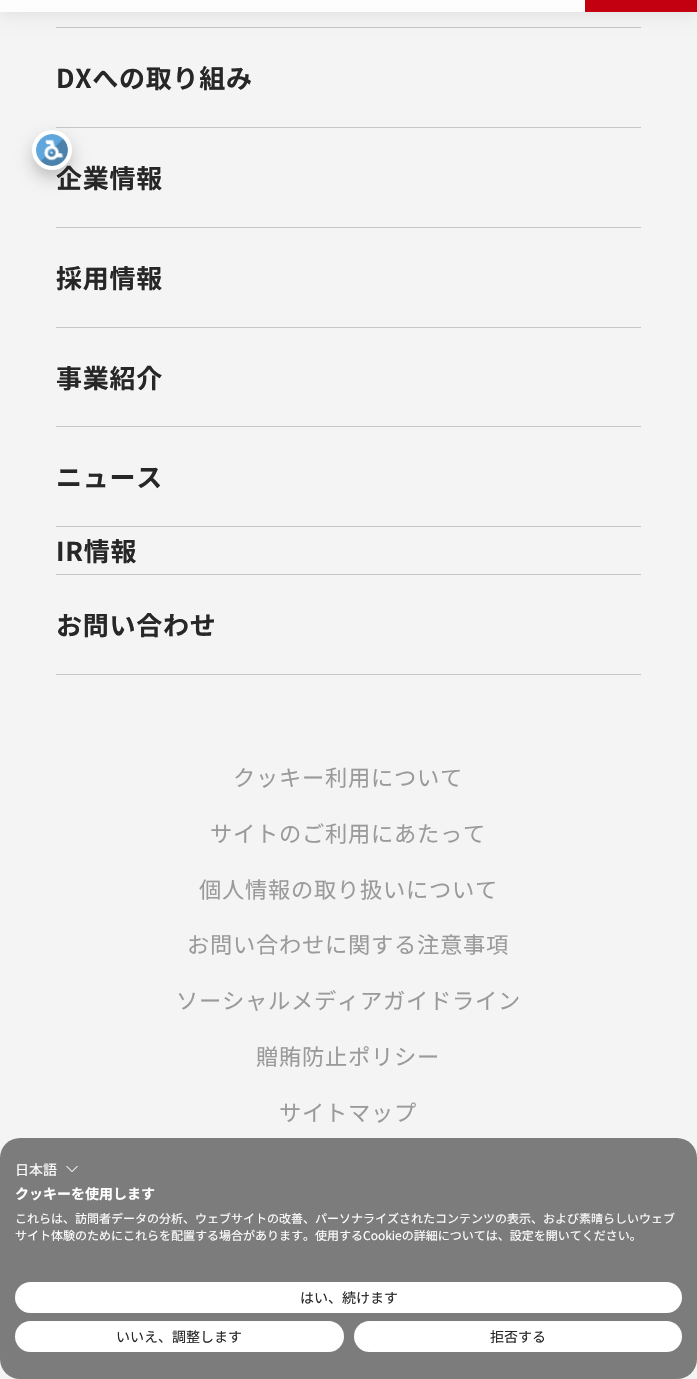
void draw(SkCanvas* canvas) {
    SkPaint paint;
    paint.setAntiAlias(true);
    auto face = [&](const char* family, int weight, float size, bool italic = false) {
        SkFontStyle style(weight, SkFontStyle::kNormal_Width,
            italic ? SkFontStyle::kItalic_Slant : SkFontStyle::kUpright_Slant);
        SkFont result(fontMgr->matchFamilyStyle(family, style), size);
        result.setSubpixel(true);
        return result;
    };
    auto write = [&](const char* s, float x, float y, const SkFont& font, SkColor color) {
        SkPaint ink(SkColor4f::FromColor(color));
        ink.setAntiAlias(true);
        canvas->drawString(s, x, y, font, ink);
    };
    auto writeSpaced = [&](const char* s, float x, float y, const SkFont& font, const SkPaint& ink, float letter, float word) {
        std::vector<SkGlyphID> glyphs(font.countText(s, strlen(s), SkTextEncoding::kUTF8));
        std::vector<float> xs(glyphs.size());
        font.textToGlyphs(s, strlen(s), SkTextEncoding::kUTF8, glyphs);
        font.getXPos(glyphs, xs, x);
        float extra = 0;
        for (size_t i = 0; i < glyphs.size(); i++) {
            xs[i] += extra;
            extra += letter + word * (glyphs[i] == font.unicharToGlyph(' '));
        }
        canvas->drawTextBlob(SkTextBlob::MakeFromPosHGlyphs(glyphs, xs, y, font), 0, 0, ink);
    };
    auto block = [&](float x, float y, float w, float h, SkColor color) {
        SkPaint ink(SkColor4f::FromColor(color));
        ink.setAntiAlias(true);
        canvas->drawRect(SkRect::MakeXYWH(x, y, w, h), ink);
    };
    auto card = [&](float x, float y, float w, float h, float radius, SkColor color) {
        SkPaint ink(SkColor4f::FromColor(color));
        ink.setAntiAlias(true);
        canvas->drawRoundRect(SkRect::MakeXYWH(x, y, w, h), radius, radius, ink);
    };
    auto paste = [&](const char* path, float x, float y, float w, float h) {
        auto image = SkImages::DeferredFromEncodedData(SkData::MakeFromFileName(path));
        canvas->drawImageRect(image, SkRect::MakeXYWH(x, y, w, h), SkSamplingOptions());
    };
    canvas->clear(SkColorSetRGB(244, 244, 244));
    block(56, 27, 585, 1, SkColorSetRGB(199, 199, 199));
    paint.setColor(SkColorSetARGB(26, 0, 0, 0));
    paint.setMaskFilter(SkMaskFilter::MakeBlur(kNormal_SkBlurStyle, 10));
    canvas->drawRect(SkRect::MakeXYWH(0, -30, 697, 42), paint);
    paint.setMaskFilter(nullptr);
    block(0, 0, 585, 12, SkColorSetRGB(253, 253, 253));
    block(585, 0, 112, 12, SkColorSetRGB(195, 0, 15));
    block(56, 127, 585, 1, SkColorSetRGB(199, 199, 199));
    paint.setColor(SkColorSetARGB(56, 0, 0, 0));
    paint.setMaskFilter(SkMaskFilter::MakeBlur(kNormal_SkBlurStyle, 8));
    canvas->drawRoundRect(SkRect::MakeXYWH(32, 138, 40, 40), 20, 20, paint);
    paint.setMaskFilter(nullptr);
    auto kFont1 = face("Noto Sans JP", 700, 26);
    paint.setColor(SkColorSetRGB(39, 39, 39));
    writeSpaced("企業情報", 56, 188, kFont1, paint, 0.75f, 0);
    paint.setStyle(SkPaint::kStroke_Style);
    paint.setStrokeWidth(4);
    paint.setColor(SK_ColorWHITE);
    canvas->drawCircle(52, 150, 18, paint);
    paint.setStyle(SkPaint::kFill_Style);
    canvas->drawCircle(52, 150, 16, paint);
    paste("pic1.png", 36, 134, 32, 32);
    paint.setColor(SkColorSetRGB(39, 39, 39));
    writeSpaced("DXへの取り組み", 56, 88, kFont1, paint, 0.75f, 0);
    block(56, 227, 585, 1, SkColorSetRGB(199, 199, 199));
    block(56, 327, 585, 1, SkColorSetRGB(199, 199, 199));
    writeSpaced("採用情報", 56, 288, kFont1, paint, 0.75f, 0);
    block(56, 426, 585, 1, SkColorSetRGB(199, 199, 199));
    writeSpaced("事業紹介", 56, 388, kFont1, paint, 0.75f, 0);
    block(56, 526, 585, 1, SkColorSetRGB(199, 199, 199));
    writeSpaced("ニュース", 56, 487, kFont1, paint, 0.75f, 0);
    block(56, 574, 585, 1, SkColorSetRGB(199, 199, 199));
    writeSpaced("IR情報", 56, 561, kFont1, paint, 0.75f, 0);
    block(56, 674, 585, 1, SkColorSetRGB(199, 199, 199));
    writeSpaced("お問い合わせ", 56, 635, kFont1, paint, 0.75f, 0);
    auto kFont2 = face("Noto Sans JP", 400, 22.25f);
    paint.setColor(SkColorSetRGB(154, 154, 154));
    writeSpaced("クッキー利用について", 233, 786, kFont2, paint, 0.75f, 0);
    writeSpaced("サイトのご利用にあたって", 210, 842, kFont2, paint, 0.75f, 0);
    writeSpaced("個人情報の取り扱いについて", 199, 898, kFont2, paint, 0.75f, 0);
    writeSpaced("お問い合わせに関する注意事項", 187, 953, kFont2, paint, 0.75f, 0);
    writeSpaced("ソーシャルメディアガイドライン", 176, 1009, kFont2, paint, 0.75f, 0);
    writeSpaced("贈賄防止ポリシー", 256, 1065, kFont2, paint, 0.75f, 0);
    writeSpaced("サイトマップ", 279, 1121, kFont2, paint, 0.75f, 0);
    card(0, 1138, 697, 241, 20, SkColorSetARGB(230, 111, 111, 111));
    auto kFont3 = face("Noto Sans JP", 400, 14);
    write("日本語", 15, 1175, kFont3, SK_ColorWHITE);
    paste("pic2.png", 66, 1166, 12, 6);
    auto kFont4 = face("Noto Sans JP", 700, 14);
    write("クッキーを使用します", 15, 1199, kFont4, SK_ColorWHITE);
    auto kFont5 = face("Noto Sans JP", 400, 12);
    write("これらは、訪問者データの分析、ウェブサイトの改善、パーソナライズされたコンテンツの表示、および素晴らしいウェブ", 15, 1223, kFont5, SK_ColorWHITE);
    write("サイト体験のためにこれらを配置する場合があります。使用するCookieの詳細については、設定を開いてください。", 15, 1240, kFont5, SK_ColorWHITE);
    card(15, 1282, 667, 31, 15.5f, SK_ColorWHITE);
    write("はい、続けます", 300, 1303, kFont3, SkColorSetRGB(39, 39, 39));
    card(15, 1321, 329, 31, 15.5f, SK_ColorWHITE);
    write("いいえ、調整します", 116, 1342, kFont3, SkColorSetRGB(39, 39, 39));
    card(354, 1321, 328, 31, 15.5f, SK_ColorWHITE);
    write("拒否する", 490, 1342, kFont3, SkColorSetRGB(39, 39, 39));
}
